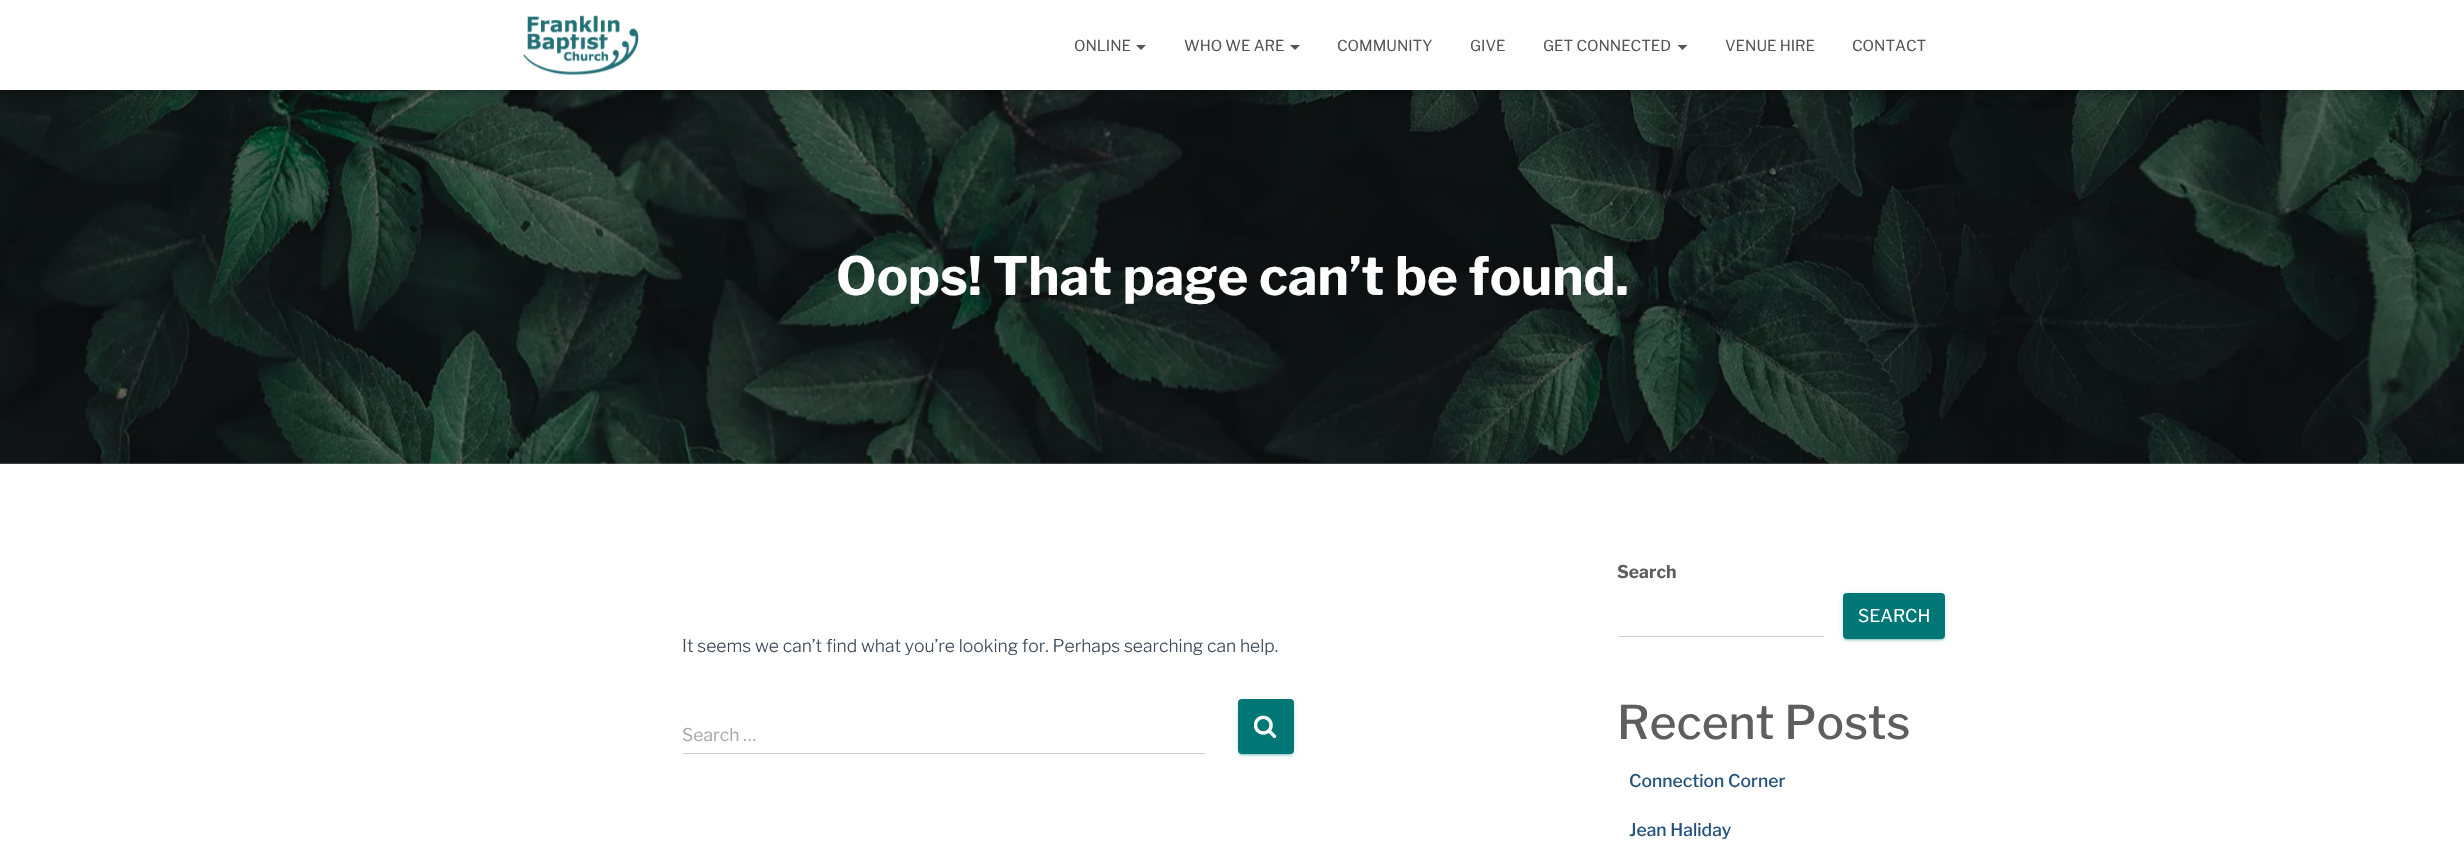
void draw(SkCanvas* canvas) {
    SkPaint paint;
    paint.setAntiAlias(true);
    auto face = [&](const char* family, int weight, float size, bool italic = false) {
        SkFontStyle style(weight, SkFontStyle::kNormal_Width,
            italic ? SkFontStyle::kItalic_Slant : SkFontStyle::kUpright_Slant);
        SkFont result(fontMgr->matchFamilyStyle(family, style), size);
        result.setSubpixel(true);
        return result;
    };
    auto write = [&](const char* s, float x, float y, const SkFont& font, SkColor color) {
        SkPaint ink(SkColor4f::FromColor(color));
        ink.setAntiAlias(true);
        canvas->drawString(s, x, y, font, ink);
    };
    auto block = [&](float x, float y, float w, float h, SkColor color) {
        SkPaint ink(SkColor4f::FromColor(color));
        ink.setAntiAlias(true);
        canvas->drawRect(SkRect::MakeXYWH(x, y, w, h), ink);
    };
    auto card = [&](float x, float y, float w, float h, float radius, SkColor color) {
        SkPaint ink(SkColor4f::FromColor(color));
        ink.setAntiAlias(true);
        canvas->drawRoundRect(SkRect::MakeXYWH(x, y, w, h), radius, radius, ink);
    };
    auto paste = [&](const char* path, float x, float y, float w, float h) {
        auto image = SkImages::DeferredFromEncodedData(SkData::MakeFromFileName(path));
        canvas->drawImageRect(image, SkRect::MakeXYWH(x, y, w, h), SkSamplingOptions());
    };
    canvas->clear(SkColorSetRGB(115, 115, 115));
    paste("pic2.png", 0, 90, 2464, 374);
    paint.setColor(SkColorSetARGB(26, 0, 0, 0));
    paint.setMaskFilter(SkMaskFilter::MakeBlur(kNormal_SkBlurStyle, 3));
    canvas->drawRect(SkRect::MakeXYWH(3, 8, 2460, 85), paint);
    paint.setMaskFilter(nullptr);
    paint.setColor(SkColorSetARGB(31, 0, 0, 0));
    paint.setMaskFilter(SkMaskFilter::MakeBlur(kNormal_SkBlurStyle, 6));
    canvas->drawRect(SkRect::MakeXYWH(0, 1, 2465, 90), paint);
    paint.setMaskFilter(nullptr);
    paint.setColor(SkColorSetARGB(107, 0, 0, 0));
    paint.setMaskFilter(SkMaskFilter::MakeBlur(kNormal_SkBlurStyle, 6));
    canvas->drawRect(SkRect::MakeXYWH(8, 9, 2450, 75), paint);
    paint.setMaskFilter(nullptr);
    block(0, 0, 2464, 90, SK_ColorWHITE);
    paste("pic1.png", 523, 15, 116, 61);
    auto kFont1 = face("Libre Franklin", 400, 15);
    write("ONLINE", 1074, 51, kFont1, SkColorSetRGB(85, 85, 85));
    paint.setColor(SkColorSetRGB(85, 85, 85));
    canvas->drawPath(SkPathBuilder().moveTo(1136, 45).lineTo(1146, 45).lineTo(1141, 50).close().detach(), paint);
    write("WHO WE ARE", 1184, 51, kFont1, SkColorSetRGB(85, 85, 85));
    canvas->drawPath(SkPathBuilder().moveTo(1290, 45).lineTo(1300, 45).lineTo(1295, 50).close().detach(), paint);
    write("COMMUNITY", 1337, 51, kFont1, SkColorSetRGB(85, 85, 85));
    write("GIVE", 1470, 51, kFont1, SkColorSetRGB(85, 85, 85));
    write("GET CONNECTED", 1543, 51, kFont1, SkColorSetRGB(85, 85, 85));
    canvas->drawPath(SkPathBuilder().moveTo(1677.5f, 45).lineTo(1687.5f, 45).lineTo(1682.5f, 50).close().detach(), paint);
    write("VENUE HIRE", 1725, 51, kFont1, SkColorSetRGB(85, 85, 85));
    write("CONTACT", 1852, 51, kFont1, SkColorSetRGB(85, 85, 85));
    auto kFont2 = face("Libre Franklin", 700, 52.5f);
    write("Oops! That page can’t be found.", 836, 295, kFont2, SK_ColorWHITE);
    block(0, 464, 2464, 403, SK_ColorWHITE);
    auto kFont3 = face("Libre Franklin", 300, 17.5f);
    write("It seems we can’t find what you’re looking for. Perhaps searching can help.", 682, 652, kFont3, SkColorSetRGB(60, 72, 88));
    auto kFont4 = face("Libre Franklin", 400, 17.5f);
    write("Search …", 682, 741, kFont4, SkColorSetRGB(170, 170, 170));
    block(683, 753, 522, 1, SkColorSetRGB(210, 210, 210));
    paint.setColor(SkColorSetARGB(31, 0, 119, 119));
    paint.setMaskFilter(SkMaskFilter::MakeBlur(kNormal_SkBlurStyle, 3));
    canvas->drawRoundRect(SkRect::MakeXYWH(1238, 700, 56, 55), 4, 4, paint);
    paint.setMaskFilter(nullptr);
    paint.setColor(SkColorSetARGB(51, 0, 119, 119));
    paint.setMaskFilter(SkMaskFilter::MakeBlur(kNormal_SkBlurStyle, 0.5f));
    canvas->drawRoundRect(SkRect::MakeXYWH(1240, 705, 51, 50), 1, 1, paint);
    paint.setMaskFilter(nullptr);
    paint.setColor(SkColorSetARGB(36, 0, 119, 119));
    paint.setMaskFilter(SkMaskFilter::MakeBlur(kNormal_SkBlurStyle, 1));
    canvas->drawRoundRect(SkRect::MakeXYWH(1238, 701, 56, 55), 4, 4, paint);
    paint.setMaskFilter(nullptr);
    card(1238, 699, 56, 55, 4, SkColorSetRGB(0, 119, 119));
    paste("pic3.png", 1254, 715, 22, 24);
    auto kFont5 = face("Libre Franklin", 700, 17.5f);
    write("Search", 1617, 578, kFont5, SkColorSetRGB(94, 94, 94));
    paint.setColor(SkColorSetARGB(31, 0, 119, 119));
    paint.setMaskFilter(SkMaskFilter::MakeBlur(kNormal_SkBlurStyle, 3));
    canvas->drawRoundRect(SkRect::MakeXYWH(1843, 594, 102, 46), 4, 4, paint);
    paint.setMaskFilter(nullptr);
    paint.setColor(SkColorSetARGB(51, 0, 119, 119));
    paint.setMaskFilter(SkMaskFilter::MakeBlur(kNormal_SkBlurStyle, 0.5f));
    canvas->drawRoundRect(SkRect::MakeXYWH(1845, 599, 98, 41), 1, 1, paint);
    paint.setMaskFilter(nullptr);
    paint.setColor(SkColorSetARGB(36, 0, 119, 119));
    paint.setMaskFilter(SkMaskFilter::MakeBlur(kNormal_SkBlurStyle, 1));
    canvas->drawRoundRect(SkRect::MakeXYWH(1843, 595, 102, 46), 4, 4, paint);
    paint.setMaskFilter(nullptr);
    card(1843, 593, 102, 46, 4, SkColorSetRGB(0, 119, 119));
    write("SEARCH", 1858, 622, kFont4, SK_ColorWHITE);
    block(1618, 636, 206, 1, SkColorSetRGB(210, 210, 210));
    auto kFont6 = face("Libre Franklin", 500, 46.25f);
    write("Recent Posts", 1617, 739, kFont6, SkColorSetRGB(94, 94, 94));
    auto kFont7 = face("Libre Franklin", 500, 17.5f);
    write("Connection Corner", 1629, 787, kFont7, SkColorSetRGB(35, 82, 124));
    write("Jean Haliday", 1629, 836, kFont7, SkColorSetRGB(35, 82, 124));
}
